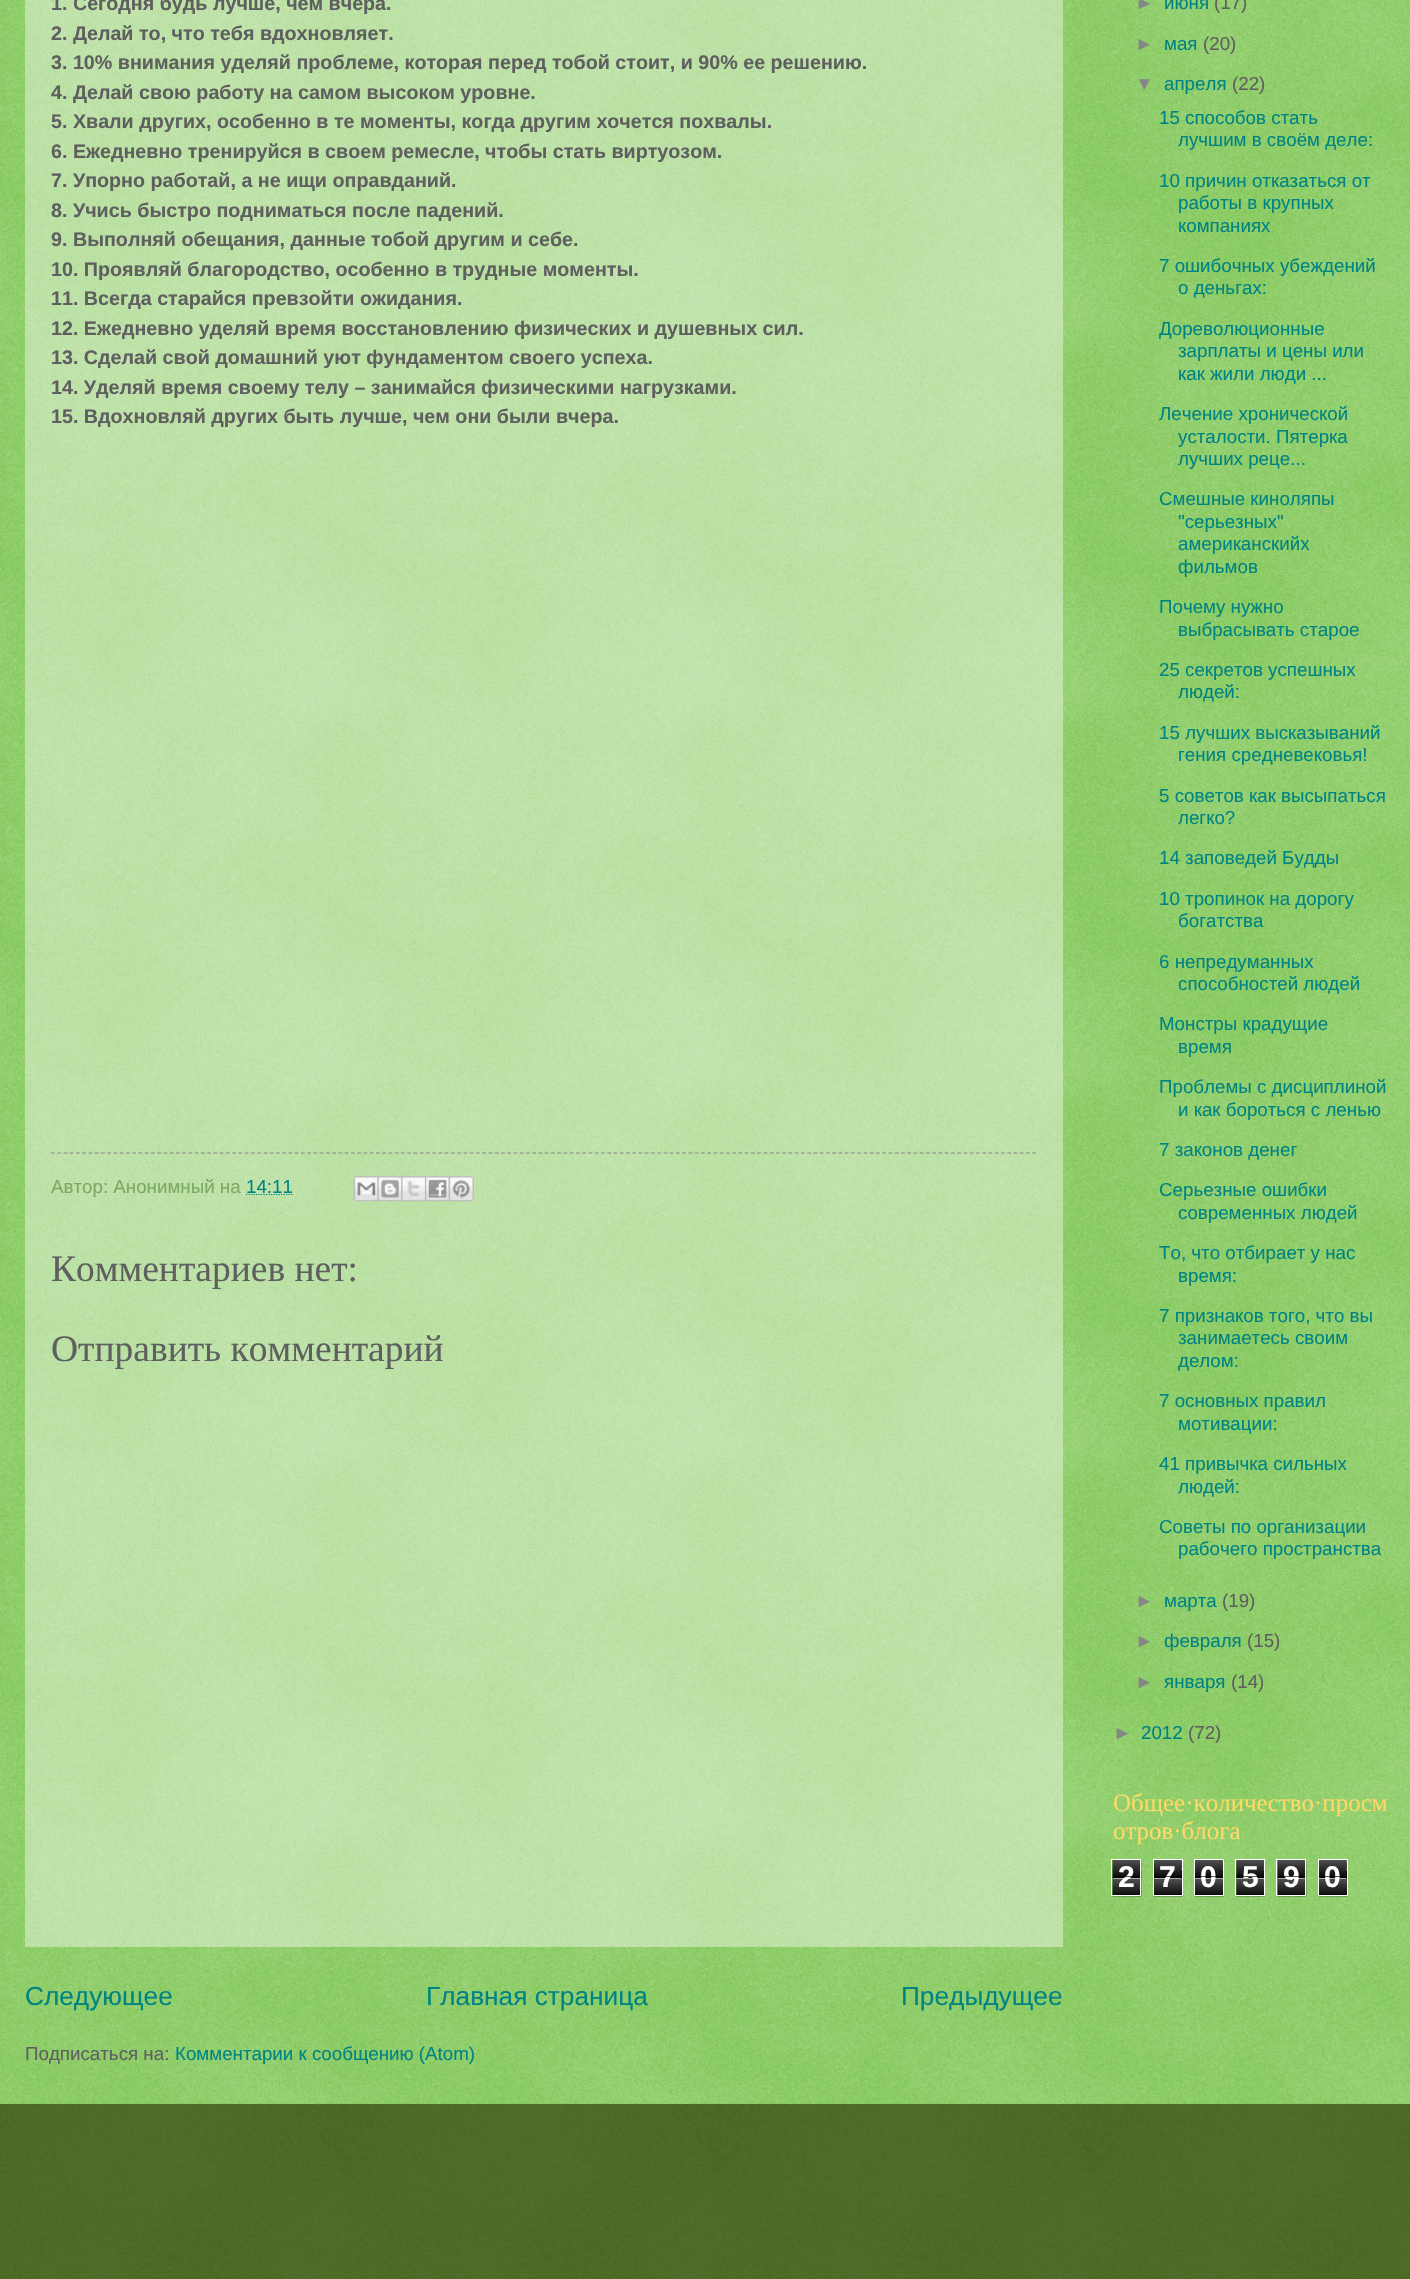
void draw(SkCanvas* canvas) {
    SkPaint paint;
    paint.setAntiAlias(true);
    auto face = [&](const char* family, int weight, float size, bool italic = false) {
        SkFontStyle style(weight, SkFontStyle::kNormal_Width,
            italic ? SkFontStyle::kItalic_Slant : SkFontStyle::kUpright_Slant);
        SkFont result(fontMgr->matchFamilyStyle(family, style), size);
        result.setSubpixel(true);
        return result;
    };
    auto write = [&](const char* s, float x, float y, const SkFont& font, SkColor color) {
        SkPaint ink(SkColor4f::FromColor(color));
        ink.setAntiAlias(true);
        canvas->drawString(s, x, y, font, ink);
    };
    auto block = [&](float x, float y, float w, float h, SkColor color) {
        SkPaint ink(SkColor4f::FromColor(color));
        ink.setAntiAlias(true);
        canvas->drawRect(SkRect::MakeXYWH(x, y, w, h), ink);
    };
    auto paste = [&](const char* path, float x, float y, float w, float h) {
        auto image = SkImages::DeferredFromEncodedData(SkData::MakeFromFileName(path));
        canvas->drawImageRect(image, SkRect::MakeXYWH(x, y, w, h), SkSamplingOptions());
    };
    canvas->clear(SkColorSetRGB(102, 187, 51));
    paste("pic1.png", 0, 0, 1410, 2104);
    block(25, 0, 1038, 1947, SkColorSetARGB(102, 255, 255, 255));
    auto kFont1 = face("Liberation Sans", 700, 19.7f);
    write("1. Сегодня будь лучше, чем вчера.", 51, 10, kFont1, SkColorSetRGB(95, 95, 95));
    write("2. Делай то, что тебя вдохновляет.", 51, 40, kFont1, SkColorSetRGB(95, 95, 95));
    write("3. 10% внимания уделяй проблеме, которая перед тобой стоит, и 90% ее решению.", 51, 69, kFont1, SkColorSetRGB(95, 95, 95));
    write("4. Делай свою работу на самом высоком уровне.", 51, 99, kFont1, SkColorSetRGB(95, 95, 95));
    write("5. Хвали других, особенно в те моменты, когда другим хочется похвалы.", 51, 128, kFont1, SkColorSetRGB(95, 95, 95));
    write("6. Ежедневно тренируйся в своем ремесле, чтобы стать виртуозом.", 51, 158, kFont1, SkColorSetRGB(95, 95, 95));
    write("7. Упорно работай, а не ищи оправданий.", 51, 187, kFont1, SkColorSetRGB(95, 95, 95));
    write("8. Учись быстро подниматься после падений.", 51, 217, kFont1, SkColorSetRGB(95, 95, 95));
    write("9. Выполняй обещания, данные тобой другим и себе.", 51, 246, kFont1, SkColorSetRGB(95, 95, 95));
    write("10. Проявляй благородство, особенно в трудные моменты.", 51, 276, kFont1, SkColorSetRGB(95, 95, 95));
    write("11. Всегда старайся превзойти ожидания.", 51, 305, kFont1, SkColorSetRGB(95, 95, 95));
    write("12. Ежедневно уделяй время восстановлению физических и душевных сил.", 51, 335, kFont1, SkColorSetRGB(95, 95, 95));
    write("13. Сделай свой домашний уют фундаментом своего успеха.", 51, 364, kFont1, SkColorSetRGB(95, 95, 95));
    write("14. Уделяй время своему телу – занимайся физическими нагрузками.", 51, 394, kFont1, SkColorSetRGB(95, 95, 95));
    write("15. Вдохновляй других быть лучше, чем они были вчера.", 51, 423, kFont1, SkColorSetRGB(95, 95, 95));
    paint.setStyle(SkPaint::kStroke_Style);
    paint.setStrokeWidth(1.2f);
    paint.setColor(SkColorSetRGB(134, 134, 134));
    paint.setPathEffect(SkDashPathEffect::Make({{3.75f, 2.5f}}, 0));
    canvas->drawPath(SkPathBuilder().moveTo(51, 1153).lineTo(1036, 1153).detach(), paint);
    paint.setPathEffect(nullptr);
    auto kFont2 = face("Liberation Sans", 400, 18.75f);
    write("Автор: Анонимный на", 51, 1193, kFont2, SkColorSetRGB(125, 168, 100));
    write("14:11", 246, 1193, kFont2, SkColorSetRGB(0, 131, 131));
    paint.setColor(SkColorSetRGB(0, 131, 131));
    paint.setPathEffect(SkDashPathEffect::Make({{1.25f, 1.25f}}, 0));
    canvas->drawPath(SkPathBuilder().moveTo(246, 1194.5f).lineTo(293, 1194.5f).detach(), paint);
    paint.setPathEffect(nullptr);
    paste("pic2.png", 353, 1176, 26, 26);
    paste("pic3.png", 377, 1176, 26, 26);
    paste("pic4.png", 401, 1176, 26, 26);
    paste("pic5.png", 425, 1176, 25, 26);
    paste("pic6.png", 448, 1176, 26, 26);
    auto kFont3 = face("Liberation Serif", 400, 37.5f);
    write("Комментариев нет:", 51, 1281, kFont3, SkColorSetRGB(95, 95, 95));
    write("Отправить комментарий", 51, 1361, kFont3, SkColorSetRGB(95, 95, 95));
    auto kFont4 = face("Liberation Sans", 400, 26.25f);
    write("Следующее", 25, 2005, kFont4, SkColorSetRGB(0, 131, 131));
    write("Главная страница", 426, 2005, kFont4, SkColorSetRGB(0, 131, 131));
    write("Предыдущее", 901, 2005, kFont4, SkColorSetRGB(0, 131, 131));
    write("Подписаться на:", 25, 2060, kFont2, SkColorSetRGB(95, 95, 95));
    write("Комментарии к сообщению (Atom)", 175, 2060, kFont2, SkColorSetRGB(0, 131, 131));
    write("►", 1135, 9, kFont2, SkColorSetRGB(134, 134, 134));
    write("июня", 1164, 9, kFont2, SkColorSetRGB(0, 131, 131));
    write("(17)", 1214, 9, kFont2, SkColorSetRGB(95, 95, 95));
    write("►", 1135, 50, kFont2, SkColorSetRGB(134, 134, 134));
    write("мая", 1164, 50, kFont2, SkColorSetRGB(0, 131, 131));
    write("(20)", 1203, 50, kFont2, SkColorSetRGB(95, 95, 95));
    write("▼", 1135, 90, kFont2, SkColorSetRGB(134, 134, 134));
    write("апреля", 1164, 90, kFont2, SkColorSetRGB(0, 131, 131));
    write("(22)", 1232, 90, kFont2, SkColorSetRGB(95, 95, 95));
    write("15 способов стать", 1159, 124, kFont2, SkColorSetRGB(0, 131, 131));
    write("лучшим в своём деле:", 1178, 146, kFont2, SkColorSetRGB(0, 131, 131));
    write("10 причин отказаться от", 1159, 187, kFont2, SkColorSetRGB(0, 131, 131));
    write("работы в крупных", 1178, 209, kFont2, SkColorSetRGB(0, 131, 131));
    write("компаниях", 1178, 232, kFont2, SkColorSetRGB(0, 131, 131));
    write("7 ошибочных убеждений", 1159, 272, kFont2, SkColorSetRGB(0, 131, 131));
    write("о деньгах:", 1178, 294, kFont2, SkColorSetRGB(0, 131, 131));
    write("Дореволюционные", 1159, 335, kFont2, SkColorSetRGB(0, 131, 131));
    write("зарплаты и цены или", 1178, 357, kFont2, SkColorSetRGB(0, 131, 131));
    write("как жили люди ...", 1178, 380, kFont2, SkColorSetRGB(0, 131, 131));
    write("Лечение хронической", 1159, 420, kFont2, SkColorSetRGB(0, 131, 131));
    write("усталости. Пятерка", 1178, 443, kFont2, SkColorSetRGB(0, 131, 131));
    write("лучших реце...", 1178, 465, kFont2, SkColorSetRGB(0, 131, 131));
    write("Смешные киноляпы", 1159, 505, kFont2, SkColorSetRGB(0, 131, 131));
    write("\"серьезных\"", 1178, 528, kFont2, SkColorSetRGB(0, 131, 131));
    write("американскийх", 1178, 550, kFont2, SkColorSetRGB(0, 131, 131));
    write("фильмов", 1178, 573, kFont2, SkColorSetRGB(0, 131, 131));
    write("Почему нужно", 1159, 613, kFont2, SkColorSetRGB(0, 131, 131));
    write("выбрасывать старое", 1178, 636, kFont2, SkColorSetRGB(0, 131, 131));
    write("25 секретов успешных", 1159, 676, kFont2, SkColorSetRGB(0, 131, 131));
    write("людей:", 1178, 698, kFont2, SkColorSetRGB(0, 131, 131));
    write("15 лучших высказываний", 1159, 739, kFont2, SkColorSetRGB(0, 131, 131));
    write("гения средневековья!", 1178, 761, kFont2, SkColorSetRGB(0, 131, 131));
    write("5 советов как высыпаться", 1159, 802, kFont2, SkColorSetRGB(0, 131, 131));
    write("легко?", 1178, 824, kFont2, SkColorSetRGB(0, 131, 131));
    write("14 заповедей Будды", 1159, 864, kFont2, SkColorSetRGB(0, 131, 131));
    write("10 тропинок на дорогу", 1159, 905, kFont2, SkColorSetRGB(0, 131, 131));
    write("богатства", 1178, 927, kFont2, SkColorSetRGB(0, 131, 131));
    write("6 непредуманных", 1159, 968, kFont2, SkColorSetRGB(0, 131, 131));
    write("способностей людей", 1178, 990, kFont2, SkColorSetRGB(0, 131, 131));
    write("Монстры крадущие", 1159, 1030, kFont2, SkColorSetRGB(0, 131, 131));
    write("время", 1178, 1053, kFont2, SkColorSetRGB(0, 131, 131));
    write("Проблемы с дисциплиной", 1159, 1093, kFont2, SkColorSetRGB(0, 131, 131));
    write("и как бороться с ленью", 1178, 1116, kFont2, SkColorSetRGB(0, 131, 131));
    write("7 законов денег", 1159, 1156, kFont2, SkColorSetRGB(0, 131, 131));
    write("Серьезные ошибки", 1159, 1196, kFont2, SkColorSetRGB(0, 131, 131));
    write("современных людей", 1178, 1219, kFont2, SkColorSetRGB(0, 131, 131));
    write("То, что отбирает у нас", 1159, 1259, kFont2, SkColorSetRGB(0, 131, 131));
    write("время:", 1178, 1282, kFont2, SkColorSetRGB(0, 131, 131));
    write("7 признаков того, что вы", 1159, 1322, kFont2, SkColorSetRGB(0, 131, 131));
    write("занимаетесь своим", 1178, 1344, kFont2, SkColorSetRGB(0, 131, 131));
    write("делом:", 1178, 1367, kFont2, SkColorSetRGB(0, 131, 131));
    write("7 основных правил", 1159, 1407, kFont2, SkColorSetRGB(0, 131, 131));
    write("мотивации:", 1178, 1430, kFont2, SkColorSetRGB(0, 131, 131));
    write("41 привычка сильных", 1159, 1470, kFont2, SkColorSetRGB(0, 131, 131));
    write("людей:", 1178, 1493, kFont2, SkColorSetRGB(0, 131, 131));
    write("Советы по организации", 1159, 1533, kFont2, SkColorSetRGB(0, 131, 131));
    write("рабочего пространства", 1178, 1555, kFont2, SkColorSetRGB(0, 131, 131));
    write("►", 1135, 1607, kFont2, SkColorSetRGB(134, 134, 134));
    write("марта", 1164, 1607, kFont2, SkColorSetRGB(0, 131, 131));
    write("(19)", 1222, 1607, kFont2, SkColorSetRGB(95, 95, 95));
    write("►", 1135, 1647, kFont2, SkColorSetRGB(134, 134, 134));
    write("февраля", 1164, 1647, kFont2, SkColorSetRGB(0, 131, 131));
    write("(15)", 1247, 1647, kFont2, SkColorSetRGB(95, 95, 95));
    write("►", 1135, 1688, kFont2, SkColorSetRGB(134, 134, 134));
    write("января", 1164, 1688, kFont2, SkColorSetRGB(0, 131, 131));
    write("(14)", 1231, 1688, kFont2, SkColorSetRGB(95, 95, 95));
    write("►", 1113, 1739, kFont2, SkColorSetRGB(134, 134, 134));
    write("2012", 1141, 1739, kFont2, SkColorSetRGB(0, 131, 131));
    write("(72)", 1188, 1739, kFont2, SkColorSetRGB(95, 95, 95));
    auto kFont5 = face("Liberation Serif", 400, 25);
    write("Общее·количество·просм", 1113, 1811, kFont5, SkColorSetRGB(255, 217, 102));
    write("отров·блога", 1113, 1839, kFont5, SkColorSetRGB(255, 217, 102));
    paste("pic7.png", 1112, 1860, 30, 37);
    paint.setStrokeWidth(1);
    paint.setColor(SK_ColorWHITE);
    canvas->drawRect(SkRect::MakeXYWH(1111.5f, 1859.5f, 29, 36), paint);
    auto kFont6 = face("Liberation Sans", 700, 30);
    write("2", 1118, 1887, kFont6, SK_ColorWHITE);
    block(1113, 1876, 27, 1, SkColorSetARGB(166, 0, 0, 0));
    block(1113, 1878, 27, 1, SkColorSetARGB(166, 255, 255, 255));
    paste("pic8.png", 1153, 1860, 30, 37);
    canvas->drawRect(SkRect::MakeXYWH(1153.5f, 1859.5f, 29, 36), paint);
    write("7", 1159, 1887, kFont6, SK_ColorWHITE);
    block(1154, 1876, 27, 1, SkColorSetARGB(166, 0, 0, 0));
    block(1154, 1878, 27, 1, SkColorSetARGB(166, 255, 255, 255));
    paste("pic9.png", 1195, 1860, 29, 37);
    canvas->drawRect(SkRect::MakeXYWH(1194.5f, 1859.5f, 29, 36), paint);
    write("0", 1200, 1887, kFont6, SK_ColorWHITE);
    block(1195, 1876, 28, 1, SkColorSetARGB(166, 0, 0, 0));
    block(1195, 1878, 28, 1, SkColorSetARGB(166, 255, 255, 255));
    paste("pic10.png", 1236, 1860, 29, 37);
    canvas->drawRect(SkRect::MakeXYWH(1235.5f, 1859.5f, 29, 36), paint);
    write("5", 1242, 1887, kFont6, SK_ColorWHITE);
    block(1236, 1876, 28, 1, SkColorSetARGB(166, 0, 0, 0));
    block(1236, 1878, 28, 1, SkColorSetARGB(166, 255, 255, 255));
    paste("pic11.png", 1277, 1860, 30, 37);
    canvas->drawRect(SkRect::MakeXYWH(1276.5f, 1859.5f, 29, 36), paint);
    write("9", 1283, 1887, kFont6, SK_ColorWHITE);
    block(1278, 1876, 27, 1, SkColorSetARGB(166, 0, 0, 0));
    block(1278, 1878, 27, 1, SkColorSetARGB(166, 255, 255, 255));
    paste("pic12.png", 1318, 1860, 30, 37);
    canvas->drawRect(SkRect::MakeXYWH(1318.5f, 1859.5f, 29, 36), paint);
    write("0", 1324, 1887, kFont6, SK_ColorWHITE);
    block(1319, 1876, 27, 1, SkColorSetARGB(166, 0, 0, 0));
    block(1319, 1878, 27, 1, SkColorSetARGB(166, 255, 255, 255));
    block(0, 2104, 1410, 175, SkColorSetRGB(45, 82, 2));
    paste("pic13.png", 0, 2103, 1410, 176);
}
